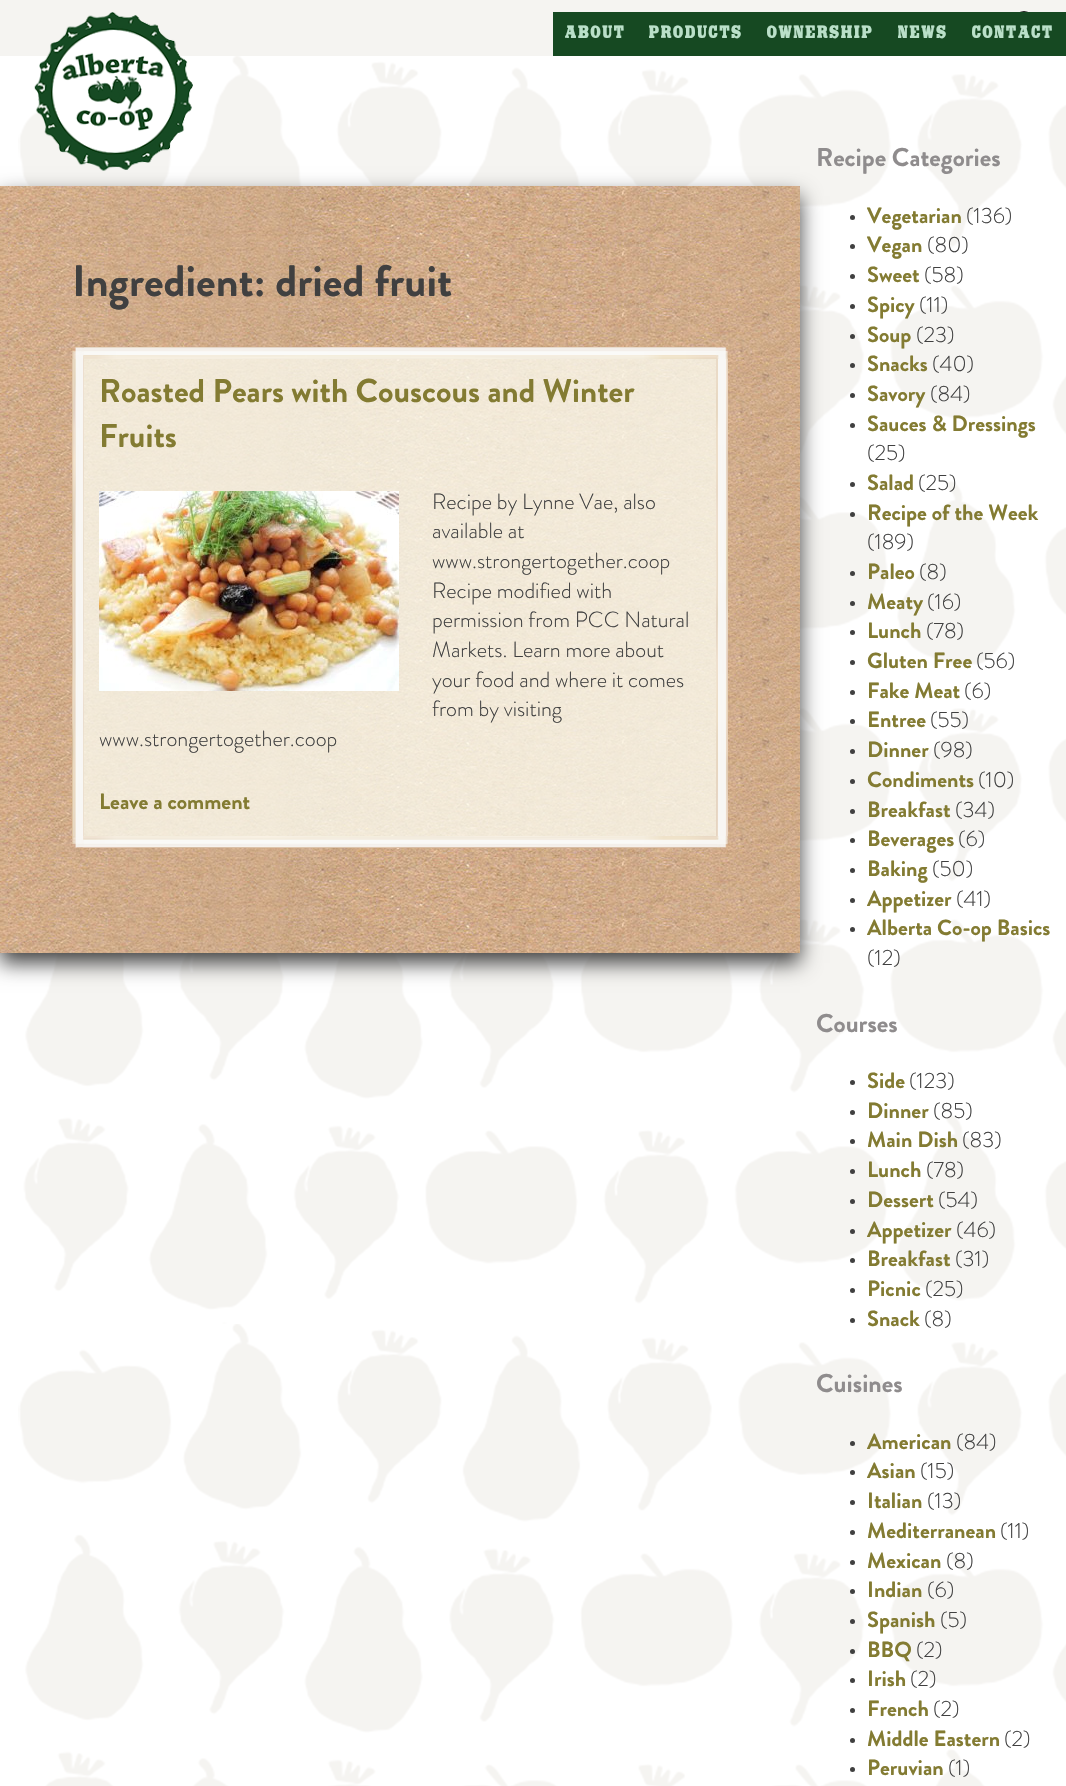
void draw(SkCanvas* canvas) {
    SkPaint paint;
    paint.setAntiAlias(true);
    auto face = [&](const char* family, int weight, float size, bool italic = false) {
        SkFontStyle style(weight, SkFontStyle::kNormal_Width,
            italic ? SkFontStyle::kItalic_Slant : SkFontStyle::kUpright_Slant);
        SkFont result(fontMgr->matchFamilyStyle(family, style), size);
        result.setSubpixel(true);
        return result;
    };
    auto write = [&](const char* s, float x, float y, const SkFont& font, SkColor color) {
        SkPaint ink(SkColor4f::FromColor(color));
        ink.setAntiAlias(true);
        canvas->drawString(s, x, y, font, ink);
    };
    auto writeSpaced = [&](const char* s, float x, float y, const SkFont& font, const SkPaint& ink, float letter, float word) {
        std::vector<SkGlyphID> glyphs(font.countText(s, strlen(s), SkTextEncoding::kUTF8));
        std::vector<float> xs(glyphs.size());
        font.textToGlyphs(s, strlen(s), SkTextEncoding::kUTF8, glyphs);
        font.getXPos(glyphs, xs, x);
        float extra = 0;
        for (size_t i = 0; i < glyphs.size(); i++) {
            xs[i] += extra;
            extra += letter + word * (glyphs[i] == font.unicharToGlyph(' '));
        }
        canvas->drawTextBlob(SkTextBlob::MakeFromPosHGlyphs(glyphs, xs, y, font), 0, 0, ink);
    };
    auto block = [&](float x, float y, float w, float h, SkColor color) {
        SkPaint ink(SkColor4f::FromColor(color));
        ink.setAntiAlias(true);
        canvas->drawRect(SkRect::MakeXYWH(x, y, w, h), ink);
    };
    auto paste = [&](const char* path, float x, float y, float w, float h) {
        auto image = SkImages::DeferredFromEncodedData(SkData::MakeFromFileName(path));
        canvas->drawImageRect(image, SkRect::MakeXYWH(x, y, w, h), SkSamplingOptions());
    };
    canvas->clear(SK_ColorWHITE);
    block(0, 0, 1066, 56, SkColorSetRGB(245, 244, 241));
    paste("pic1.png", 1020, 11, 8, 1);
    paste("pic3.png", 18, 56, 1048, 1730);
    paint.setColor(SkColorSetRGB(64, 64, 64));
    paint.setMaskFilter(SkMaskFilter::MakeBlur(kNormal_SkBlurStyle, 10));
    canvas->drawRect(SkRect::MakeXYWH(0, 196, 800, 767), paint);
    paint.setMaskFilter(nullptr);
    paste("pic2.png", 34, 12, 159, 159);
    block(553, 12, 513, 44, SkColorSetRGB(22, 73, 34));
    auto kFont1 = face("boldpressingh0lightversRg", 400, 18);
    paint.setColor(SkColorSetRGB(186, 224, 201));
    writeSpaced("ABOUT", 565, 38, kFont1, paint, 1.5f, 0);
    writeSpaced("PRODUCTS", 649, 38, kFont1, paint, 1.5f, 0);
    writeSpaced("OWNERSHIP", 767, 38, kFont1, paint, 1.5f, 0);
    writeSpaced("NEWS", 898, 38, kFont1, paint, 1.5f, 0);
    writeSpaced("CONTACT", 972, 38, kFont1, paint, 1.5f, 0);
    paste("pic4.png", 0, 186, 800, 767);
    auto kFont2 = face("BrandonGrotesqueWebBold", 400, 44);
    write("Ingredient: dried fruit", 72, 296, kFont2, SkColorSetRGB(64, 64, 64));
    block(84, 359, 632, 477, SkColorSetARGB(194, 253, 253, 240));
    paste("pic5.png", 72, 347, 656, 501);
    auto kFont3 = face("BrandonGrotesqueWebBold", 400, 33);
    write("Roasted Pears with Couscous and Winter", 99, 402, kFont3, SkColorSetRGB(131, 123, 50));
    write("Fruits", 99, 447, kFont3, SkColorSetRGB(131, 123, 50));
    paste("pic6.png", 99, 491, 300, 200);
    auto kFont4 = face("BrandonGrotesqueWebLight", 400, 22);
    write("Recipe by Lynne Vae, also", 432, 509, kFont4, SkColorSetRGB(64, 64, 64));
    write("available at", 432, 538, kFont4, SkColorSetRGB(64, 64, 64));
    write("www.strongertogether.coop", 432, 568, kFont4, SkColorSetRGB(64, 64, 64));
    write("Recipe modified with", 432, 598, kFont4, SkColorSetRGB(64, 64, 64));
    write("permission from PCC Natural", 432, 627, kFont4, SkColorSetRGB(64, 64, 64));
    write("Markets. Learn more about", 432, 657, kFont4, SkColorSetRGB(64, 64, 64));
    write("your food and where it comes", 432, 687, kFont4, SkColorSetRGB(64, 64, 64));
    write("from by visiting", 432, 716, kFont4, SkColorSetRGB(64, 64, 64));
    write("www.strongertogether.coop", 99, 746, kFont4, SkColorSetRGB(64, 64, 64));
    auto kFont5 = face("BrandonGrotesqueWebBold", 400, 22);
    write("Leave a comment", 99, 809, kFont5, SkColorSetRGB(131, 123, 50));
    auto kFont6 = face("BrandonGrotesqueWebBold", 400, 25.75f);
    write("Recipe Categories", 816, 166, kFont6, SkColorSetRGB(143, 140, 141));
    paint.setColor(SkColorSetRGB(64, 64, 64));
    canvas->drawCircle(852.5f, 217.5f, 2.5f, paint);
    write("Vegetarian", 867, 223, kFont5, SkColorSetRGB(131, 123, 50));
    write("(136)", 966, 223, kFont4, SkColorSetRGB(64, 64, 64));
    canvas->drawCircle(852.5f, 246.5f, 2.5f, paint);
    write("Vegan", 867, 252, kFont5, SkColorSetRGB(131, 123, 50));
    write("(80)", 927, 252, kFont4, SkColorSetRGB(64, 64, 64));
    canvas->drawCircle(852.5f, 276.5f, 2.5f, paint);
    write("Sweet", 867, 282, kFont5, SkColorSetRGB(131, 123, 50));
    write("(58)", 924, 282, kFont4, SkColorSetRGB(64, 64, 64));
    canvas->drawCircle(852.5f, 306.5f, 2.5f, paint);
    write("Spicy", 867, 312, kFont5, SkColorSetRGB(131, 123, 50));
    write("(11)", 919, 312, kFont4, SkColorSetRGB(64, 64, 64));
    canvas->drawCircle(852.5f, 336.5f, 2.5f, paint);
    write("Soup", 867, 342, kFont5, SkColorSetRGB(131, 123, 50));
    write("(23)", 916, 342, kFont4, SkColorSetRGB(64, 64, 64));
    canvas->drawCircle(852.5f, 365.5f, 2.5f, paint);
    write("Snacks", 867, 371, kFont5, SkColorSetRGB(131, 123, 50));
    write("(40)", 932, 371, kFont4, SkColorSetRGB(64, 64, 64));
    canvas->drawCircle(852.5f, 395.5f, 2.5f, paint);
    write("Savory", 867, 401, kFont5, SkColorSetRGB(131, 123, 50));
    write("(84)", 930, 401, kFont4, SkColorSetRGB(64, 64, 64));
    canvas->drawCircle(852.5f, 425.5f, 2.5f, paint);
    write("Sauces & Dressings", 867, 431, kFont5, SkColorSetRGB(131, 123, 50));
    write("(25)", 867, 460, kFont4, SkColorSetRGB(64, 64, 64));
    canvas->drawCircle(852.5f, 484.5f, 2.5f, paint);
    write("Salad", 867, 490, kFont5, SkColorSetRGB(131, 123, 50));
    write("(25)", 918, 490, kFont4, SkColorSetRGB(64, 64, 64));
    canvas->drawCircle(852.5f, 514.5f, 2.5f, paint);
    write("Recipe of the Week", 867, 520, kFont5, SkColorSetRGB(131, 123, 50));
    write("(189)", 867, 549, kFont4, SkColorSetRGB(64, 64, 64));
    canvas->drawCircle(852.5f, 573.5f, 2.5f, paint);
    write("Paleo", 867, 579, kFont5, SkColorSetRGB(131, 123, 50));
    write("(8)", 919, 579, kFont4, SkColorSetRGB(64, 64, 64));
    canvas->drawCircle(852.5f, 603.5f, 2.5f, paint);
    write("Meaty", 867, 609, kFont5, SkColorSetRGB(131, 123, 50));
    write("(16)", 927, 609, kFont4, SkColorSetRGB(64, 64, 64));
    canvas->drawCircle(852.5f, 632.5f, 2.5f, paint);
    write("Lunch", 867, 638, kFont5, SkColorSetRGB(131, 123, 50));
    write("(78)", 926, 638, kFont4, SkColorSetRGB(64, 64, 64));
    canvas->drawCircle(852.5f, 662.5f, 2.5f, paint);
    write("Gluten Free", 867, 668, kFont5, SkColorSetRGB(131, 123, 50));
    write("(56)", 976, 668, kFont4, SkColorSetRGB(64, 64, 64));
    canvas->drawCircle(852.5f, 692.5f, 2.5f, paint);
    write("Fake Meat", 867, 698, kFont5, SkColorSetRGB(131, 123, 50));
    write("(6)", 964, 698, kFont4, SkColorSetRGB(64, 64, 64));
    canvas->drawCircle(852.5f, 721.5f, 2.5f, paint);
    write("Entree", 867, 727, kFont5, SkColorSetRGB(131, 123, 50));
    write("(55)", 930, 727, kFont4, SkColorSetRGB(64, 64, 64));
    canvas->drawCircle(852.5f, 751.5f, 2.5f, paint);
    write("Dinner", 867, 757, kFont5, SkColorSetRGB(131, 123, 50));
    write("(98)", 933, 757, kFont4, SkColorSetRGB(64, 64, 64));
    canvas->drawCircle(852.5f, 781.5f, 2.5f, paint);
    write("Condiments", 867, 787, kFont5, SkColorSetRGB(131, 123, 50));
    write("(10)", 978, 787, kFont4, SkColorSetRGB(64, 64, 64));
    canvas->drawCircle(852.5f, 811.5f, 2.5f, paint);
    write("Breakfast", 867, 817, kFont5, SkColorSetRGB(131, 123, 50));
    write("(34)", 955, 817, kFont4, SkColorSetRGB(64, 64, 64));
    canvas->drawCircle(852.5f, 840.5f, 2.5f, paint);
    write("Beverages", 867, 846, kFont5, SkColorSetRGB(131, 123, 50));
    write("(6)", 958, 846, kFont4, SkColorSetRGB(64, 64, 64));
    canvas->drawCircle(852.5f, 870.5f, 2.5f, paint);
    write("Baking", 867, 876, kFont5, SkColorSetRGB(131, 123, 50));
    write("(50)", 932, 876, kFont4, SkColorSetRGB(64, 64, 64));
    canvas->drawCircle(852.5f, 900.5f, 2.5f, paint);
    write("Appetizer", 867, 906, kFont5, SkColorSetRGB(131, 123, 50));
    write("(41)", 956, 906, kFont4, SkColorSetRGB(64, 64, 64));
    canvas->drawCircle(852.5f, 929.5f, 2.5f, paint);
    write("Alberta Co-op Basics", 867, 935, kFont5, SkColorSetRGB(131, 123, 50));
    write("(12)", 867, 965, kFont4, SkColorSetRGB(64, 64, 64));
    write("Courses", 816, 1032, kFont6, SkColorSetRGB(143, 140, 141));
    canvas->drawCircle(852.5f, 1082.5f, 2.5f, paint);
    write("Side", 867, 1088, kFont5, SkColorSetRGB(131, 123, 50));
    write("(123)", 909, 1088, kFont4, SkColorSetRGB(64, 64, 64));
    canvas->drawCircle(852.5f, 1112.5f, 2.5f, paint);
    write("Dinner", 867, 1118, kFont5, SkColorSetRGB(131, 123, 50));
    write("(85)", 933, 1118, kFont4, SkColorSetRGB(64, 64, 64));
    canvas->drawCircle(852.5f, 1141.5f, 2.5f, paint);
    write("Main Dish", 867, 1147, kFont5, SkColorSetRGB(131, 123, 50));
    write("(83)", 962, 1147, kFont4, SkColorSetRGB(64, 64, 64));
    canvas->drawCircle(852.5f, 1171.5f, 2.5f, paint);
    write("Lunch", 867, 1177, kFont5, SkColorSetRGB(131, 123, 50));
    write("(78)", 926, 1177, kFont4, SkColorSetRGB(64, 64, 64));
    canvas->drawCircle(852.5f, 1201.5f, 2.5f, paint);
    write("Dessert", 867, 1207, kFont5, SkColorSetRGB(131, 123, 50));
    write("(54)", 938, 1207, kFont4, SkColorSetRGB(64, 64, 64));
    canvas->drawCircle(852.5f, 1231.5f, 2.5f, paint);
    write("Appetizer", 867, 1237, kFont5, SkColorSetRGB(131, 123, 50));
    write("(46)", 956, 1237, kFont4, SkColorSetRGB(64, 64, 64));
    canvas->drawCircle(852.5f, 1260.5f, 2.5f, paint);
    write("Breakfast", 867, 1266, kFont5, SkColorSetRGB(131, 123, 50));
    write("(31)", 955, 1266, kFont4, SkColorSetRGB(64, 64, 64));
    canvas->drawCircle(852.5f, 1290.5f, 2.5f, paint);
    write("Picnic", 867, 1296, kFont5, SkColorSetRGB(131, 123, 50));
    write("(25)", 925, 1296, kFont4, SkColorSetRGB(64, 64, 64));
    canvas->drawCircle(852.5f, 1320.5f, 2.5f, paint);
    write("Snack", 867, 1326, kFont5, SkColorSetRGB(131, 123, 50));
    write("(8)", 924, 1326, kFont4, SkColorSetRGB(64, 64, 64));
    write("Cuisines", 816, 1392, kFont6, SkColorSetRGB(143, 140, 141));
    canvas->drawCircle(852.5f, 1443.5f, 2.5f, paint);
    write("American", 867, 1449, kFont5, SkColorSetRGB(131, 123, 50));
    write("(84)", 956, 1449, kFont4, SkColorSetRGB(64, 64, 64));
    canvas->drawCircle(852.5f, 1472.5f, 2.5f, paint);
    write("Asian", 867, 1478, kFont5, SkColorSetRGB(131, 123, 50));
    write("(15)", 920, 1478, kFont4, SkColorSetRGB(64, 64, 64));
    canvas->drawCircle(852.5f, 1502.5f, 2.5f, paint);
    write("Italian", 867, 1508, kFont5, SkColorSetRGB(131, 123, 50));
    write("(13)", 927, 1508, kFont4, SkColorSetRGB(64, 64, 64));
    canvas->drawCircle(852.5f, 1532.5f, 2.5f, paint);
    write("Mediterranean", 867, 1538, kFont5, SkColorSetRGB(131, 123, 50));
    write("(11)", 1000, 1538, kFont4, SkColorSetRGB(64, 64, 64));
    canvas->drawCircle(852.5f, 1562.5f, 2.5f, paint);
    write("Mexican", 867, 1568, kFont5, SkColorSetRGB(131, 123, 50));
    write("(8)", 946, 1568, kFont4, SkColorSetRGB(64, 64, 64));
    canvas->drawCircle(852.5f, 1591.5f, 2.5f, paint);
    write("Indian", 867, 1597, kFont5, SkColorSetRGB(131, 123, 50));
    write("(6)", 927, 1597, kFont4, SkColorSetRGB(64, 64, 64));
    canvas->drawCircle(852.5f, 1621.5f, 2.5f, paint);
    write("Spanish", 867, 1627, kFont5, SkColorSetRGB(131, 123, 50));
    write("(5)", 940, 1627, kFont4, SkColorSetRGB(64, 64, 64));
    canvas->drawCircle(852.5f, 1651.5f, 2.5f, paint);
    write("BBQ", 867, 1657, kFont5, SkColorSetRGB(131, 123, 50));
    write("(2)", 916, 1657, kFont4, SkColorSetRGB(64, 64, 64));
    canvas->drawCircle(852.5f, 1680.5f, 2.5f, paint);
    write("Irish", 867, 1686, kFont5, SkColorSetRGB(131, 123, 50));
    write("(2)", 910, 1686, kFont4, SkColorSetRGB(64, 64, 64));
    canvas->drawCircle(852.5f, 1710.5f, 2.5f, paint);
    write("French", 867, 1716, kFont5, SkColorSetRGB(131, 123, 50));
    write("(2)", 933, 1716, kFont4, SkColorSetRGB(64, 64, 64));
    canvas->drawCircle(852.5f, 1740.5f, 2.5f, paint);
    write("Middle Eastern", 867, 1746, kFont5, SkColorSetRGB(131, 123, 50));
    write("(2)", 1004, 1746, kFont4, SkColorSetRGB(64, 64, 64));
    canvas->drawCircle(852.5f, 1769.5f, 2.5f, paint);
    write("Peruvian", 867, 1775, kFont5, SkColorSetRGB(131, 123, 50));
    write("(1)", 948, 1775, kFont4, SkColorSetRGB(64, 64, 64));
}
